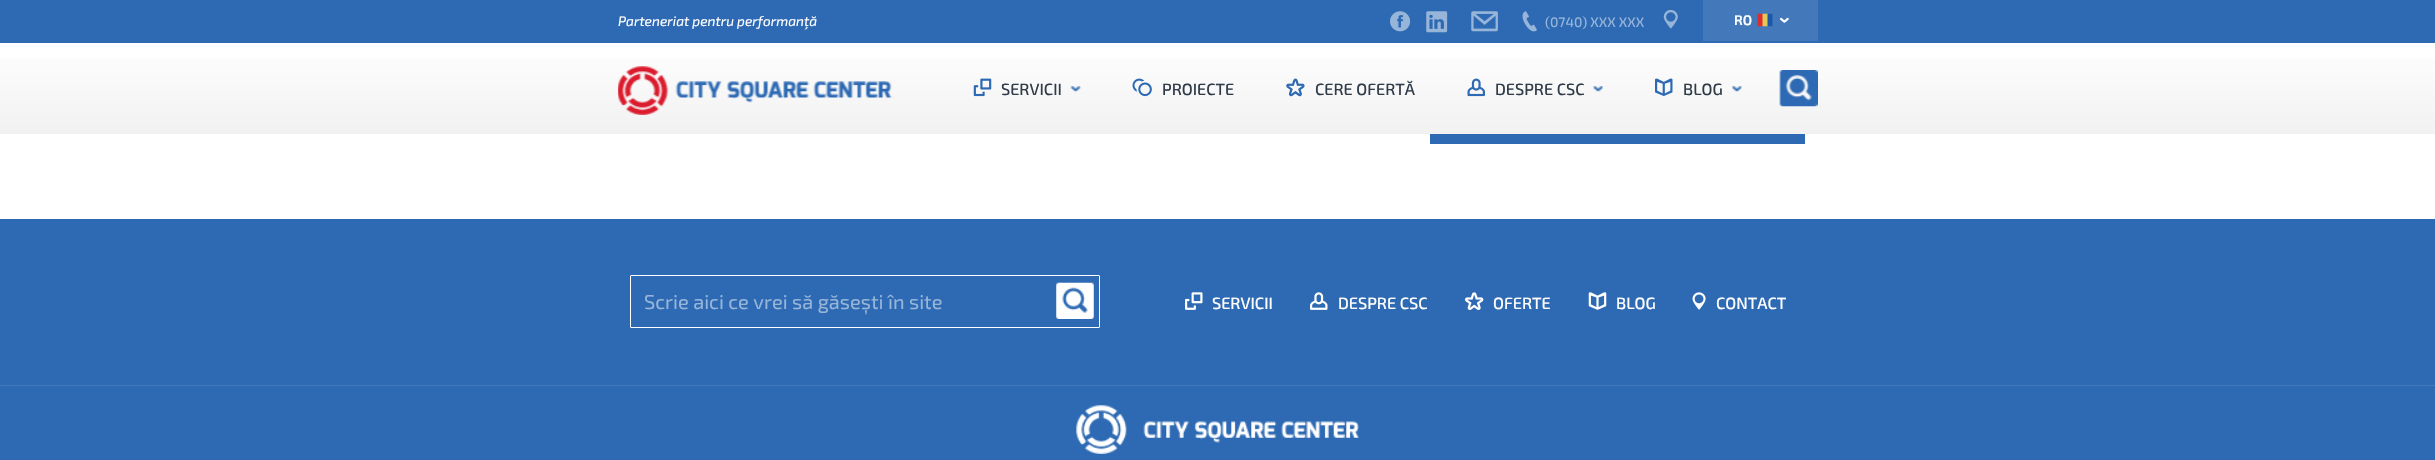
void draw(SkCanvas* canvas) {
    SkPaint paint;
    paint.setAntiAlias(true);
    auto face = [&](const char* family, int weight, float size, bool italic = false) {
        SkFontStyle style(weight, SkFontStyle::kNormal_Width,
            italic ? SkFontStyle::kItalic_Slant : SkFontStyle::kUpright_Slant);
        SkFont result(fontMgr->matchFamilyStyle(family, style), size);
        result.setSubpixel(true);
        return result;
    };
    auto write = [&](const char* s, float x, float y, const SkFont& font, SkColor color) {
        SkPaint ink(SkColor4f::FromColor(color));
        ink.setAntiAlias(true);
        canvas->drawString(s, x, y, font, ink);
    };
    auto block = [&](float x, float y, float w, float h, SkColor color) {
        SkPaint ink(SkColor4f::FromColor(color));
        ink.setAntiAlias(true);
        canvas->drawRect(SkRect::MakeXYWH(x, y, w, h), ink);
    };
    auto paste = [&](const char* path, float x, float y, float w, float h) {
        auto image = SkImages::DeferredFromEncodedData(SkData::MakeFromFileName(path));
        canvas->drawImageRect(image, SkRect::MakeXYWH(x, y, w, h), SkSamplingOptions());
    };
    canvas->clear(SK_ColorWHITE);
    block(0, 0, 2435, 43, SkColorSetRGB(46, 106, 179));
    auto kFont1 = face("Exo 2", 400, 13.75f, true);
    write("Parteneriat pentru performanţă", 618, 26, kFont1, SK_ColorWHITE);
    paste("pic1.png", 1390, 11, 21, 21);
    paste("pic2.png", 1426, 11, 22, 22);
    paste("pic3.png", 1471, 11, 27, 21);
    paste("pic4.png", 1522, 11, 15, 21);
    auto kFont2 = face("Exo 2", 500, 13.75f);
    write("(0740) XXX XXX", 1545, 27, kFont2, SkColorSetRGB(151, 181, 217));
    paste("pic5.png", 1663, 9, 15, 20);
    block(1703, 0, 115, 41, SkColorSetRGB(67, 121, 187));
    auto kFont3 = face("Exo 2", 600, 13.75f);
    write("RO", 1734, 25, kFont3, SK_ColorWHITE);
    paste("pic6.png", 1757, 13, 16, 14);
    paste("pic7.png", 1780, 17, 9, 6);
    {
        const SkColor colors[] = {SK_ColorWHITE, SkColorSetRGB(241, 241, 241)};
        const float stops[] = {0, 1};
        const SkPoint ends[] = {{1218, 42}, {1218, 134}};
        paint.setShader(SkGradientShader::MakeLinear(ends, colors, stops, 2, SkTileMode::kClamp));
        paint.setAlpha(255);
    }
    canvas->drawRect(SkRect::MakeXYWH(0, 58, 2435, 76), paint);
    paste("pic8.png", 618, 66, 274, 49);
    paste("pic9.png", 973, 78, 19, 19);
    auto kFont4 = face("Exo 2", 500, 16.25f);
    write("SERVICII", 1001, 95, kFont4, SkColorSetRGB(48, 60, 74));
    paste("pic10.png", 1070, 86, 11, 6);
    paste("pic11.png", 1132, 78, 20, 19);
    write("PROIECTE", 1162, 95, kFont4, SkColorSetRGB(48, 60, 74));
    paste("pic12.png", 1286, 78, 19, 19);
    write("CERE OFERTĂ", 1315, 95, kFont4, SkColorSetRGB(48, 60, 74));
    paste("pic13.png", 1467, 78, 18, 19);
    write("DESPRE CSC", 1495, 95, kFont4, SkColorSetRGB(48, 60, 74));
    paste("pic14.png", 1593, 86, 10, 6);
    paste("pic15.png", 1655, 78, 18, 18);
    write("BLOG", 1683, 95, kFont4, SkColorSetRGB(48, 60, 74));
    paste("pic16.png", 1732, 86, 10, 6);
    paste("pic17.png", 1779, 70, 39, 37);
    block(1430, 134, 375, 10, SkColorSetRGB(46, 106, 179));
    block(0, 219, 2435, 241, SkColorSetRGB(46, 106, 179));
    block(0, 385, 2435, 1, SkColorSetRGB(67, 121, 187));
    paint.setStyle(SkPaint::kStroke_Style);
    paint.setStrokeWidth(1);
    paint.setShader(nullptr);
    paint.setColor(SK_ColorWHITE);
    canvas->drawRoundRect(SkRect::MakeXYWH(630.5f, 275.5f, 469, 52), 0.5f, 0.5f, paint);
    auto kFont5 = face("Exo 2", 400, 20);
    write("Scrie aici ce vrei să găsești în site", 644, 309, kFont5, SkColorSetRGB(151, 181, 217));
    paste("pic18.png", 1056, 282, 38, 37);
    paste("pic19.png", 1185, 292, 18, 18);
    write("SERVICII", 1212, 309, kFont4, SK_ColorWHITE);
    paste("pic20.png", 1310, 292, 18, 18);
    write("DESPRE CSC", 1338, 309, kFont4, SK_ColorWHITE);
    paste("pic21.png", 1465, 292, 19, 18);
    write("OFERTE", 1493, 309, kFont4, SK_ColorWHITE);
    paste("pic22.png", 1588, 292, 19, 18);
    write("BLOG", 1616, 309, kFont4, SK_ColorWHITE);
    paste("pic23.png", 1692, 292, 14, 18);
    write("CONTACT", 1716, 309, kFont4, SK_ColorWHITE);
    paste("pic24.png", 1076, 405, 283, 49);
}
